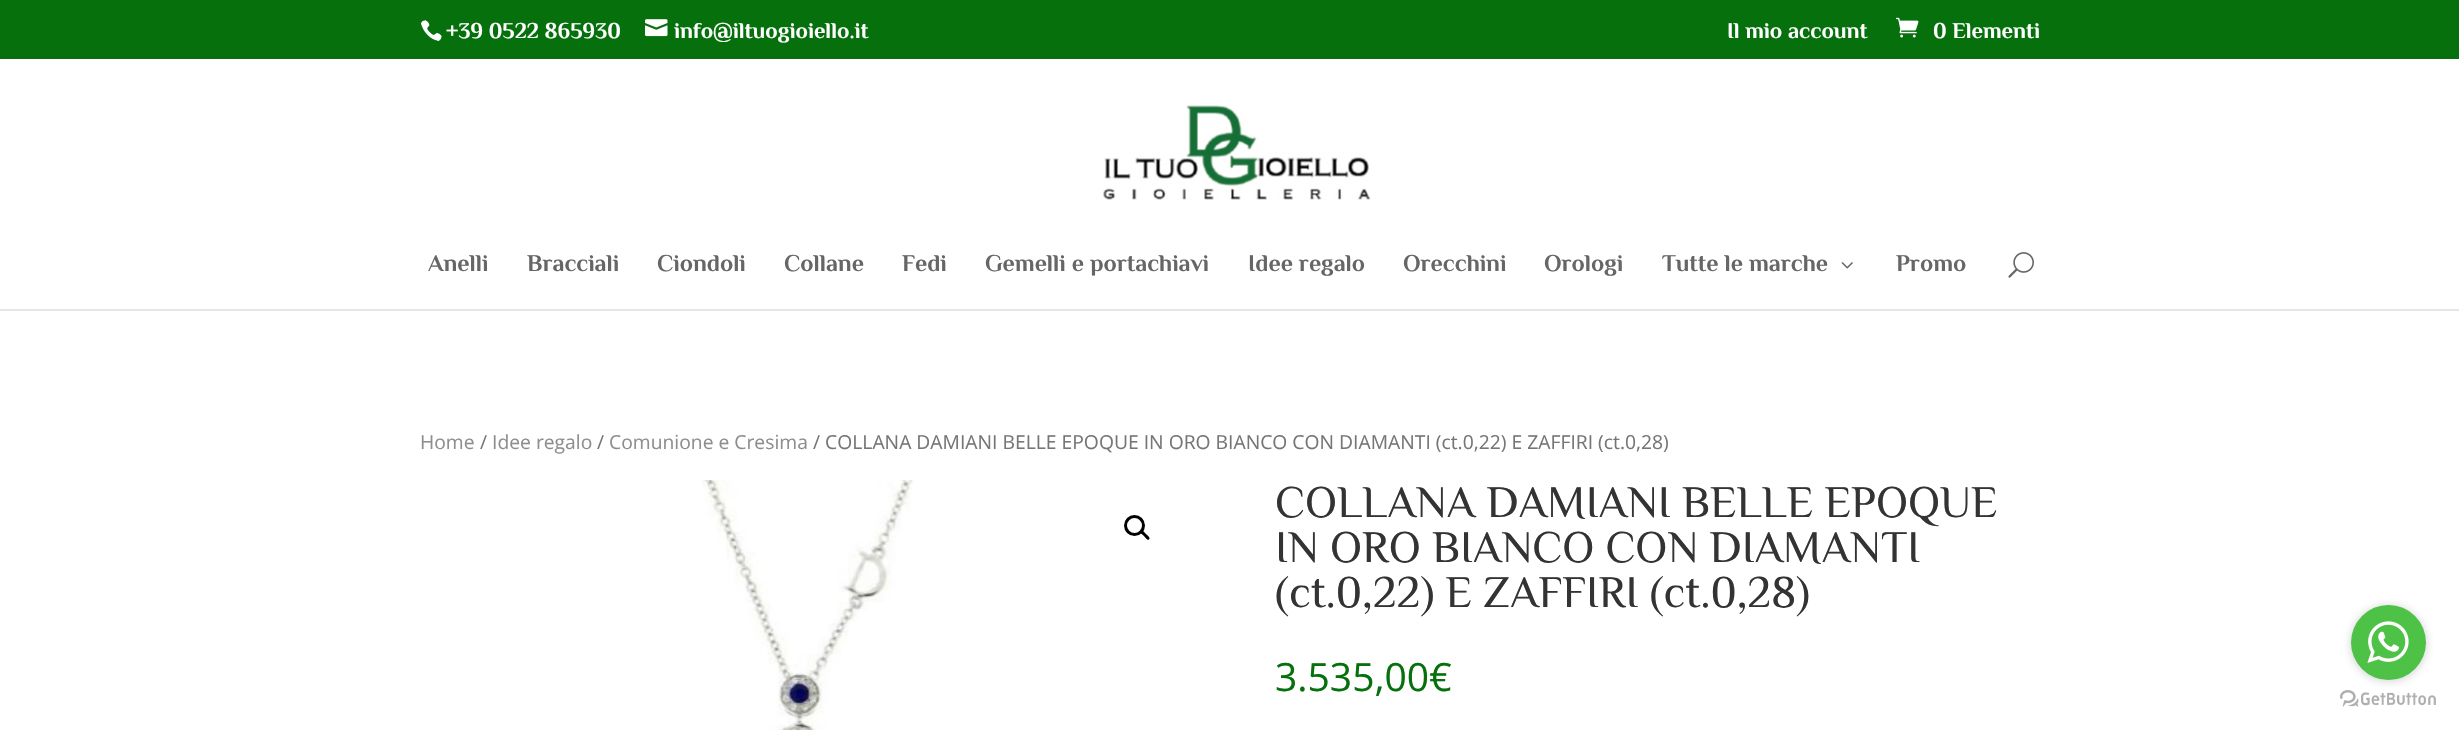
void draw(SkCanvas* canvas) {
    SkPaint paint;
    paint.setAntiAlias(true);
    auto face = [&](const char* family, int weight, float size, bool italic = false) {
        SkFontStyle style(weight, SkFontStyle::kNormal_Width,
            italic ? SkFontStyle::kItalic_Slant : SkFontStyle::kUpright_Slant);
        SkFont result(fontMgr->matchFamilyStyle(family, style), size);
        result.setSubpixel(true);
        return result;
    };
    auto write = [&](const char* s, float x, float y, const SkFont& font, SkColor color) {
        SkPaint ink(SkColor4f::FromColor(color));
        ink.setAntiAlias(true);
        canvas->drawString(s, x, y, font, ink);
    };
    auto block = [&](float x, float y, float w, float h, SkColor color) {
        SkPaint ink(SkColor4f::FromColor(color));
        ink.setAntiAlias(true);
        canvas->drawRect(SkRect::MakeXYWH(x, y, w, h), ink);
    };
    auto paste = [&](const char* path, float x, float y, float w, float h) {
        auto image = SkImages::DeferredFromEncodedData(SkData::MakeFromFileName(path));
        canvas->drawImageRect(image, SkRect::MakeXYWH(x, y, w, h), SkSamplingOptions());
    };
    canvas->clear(SkColorSetRGB(6, 112, 12));
    paste("pic1.png", 420, 20, 22, 21);
    auto kFont1 = face("Philosopher", 700, 22.5f);
    write("+39 0522 865930", 446, 38, kFont1, SK_ColorWHITE);
    paste("pic2.png", 645, 19, 23, 18);
    write("info@iltuogioiello.it", 674, 38, kFont1, SK_ColorWHITE);
    write("Il mio account", 1727, 38, kFont1, SK_ColorWHITE);
    paste("pic3.png", 1896, 17, 23, 21);
    write("0 Elementi", 1933, 38, kFont1, SK_ColorWHITE);
    block(0, 309, 2459, 2, SkColorSetRGB(230, 230, 230));
    block(0, 59, 2459, 250, SK_ColorWHITE);
    paste("pic4.png", 1103, 105, 268, 96);
    auto kFont2 = face("Philosopher", 700, 24);
    write("Anelli", 428, 271, kFont2, SkColorSetRGB(102, 102, 102));
    write("Bracciali", 527, 271, kFont2, SkColorSetRGB(102, 102, 102));
    write("Ciondoli", 657, 271, kFont2, SkColorSetRGB(102, 102, 102));
    write("Collane", 784, 271, kFont2, SkColorSetRGB(102, 102, 102));
    write("Fedi", 902, 271, kFont2, SkColorSetRGB(102, 102, 102));
    write("Gemelli e portachiavi", 985, 271, kFont2, SkColorSetRGB(102, 102, 102));
    write("Idee regalo", 1248, 271, kFont2, SkColorSetRGB(102, 102, 102));
    write("Orecchini", 1403, 271, kFont2, SkColorSetRGB(102, 102, 102));
    write("Orologi", 1544, 271, kFont2, SkColorSetRGB(102, 102, 102));
    write("Tutte le marche", 1662, 271, kFont2, SkColorSetRGB(102, 102, 102));
    paste("pic5.png", 1841, 262, 12, 7);
    write("Promo", 1896, 271, kFont2, SkColorSetRGB(102, 102, 102));
    paste("pic6.png", 2008, 252, 26, 26);
    block(0, 311, 2459, 419, SK_ColorWHITE);
    auto kFont3 = face("Open Sans", 400, 19.3f);
    write("Home", 420, 449, kFont3, SkColorSetRGB(142, 142, 142));
    write("/", 480, 449, kFont3, SkColorSetRGB(118, 118, 118));
    write("Idee regalo", 492, 449, kFont3, SkColorSetRGB(142, 142, 142));
    write("/", 597, 449, kFont3, SkColorSetRGB(118, 118, 118));
    write("Comunione e Cresima", 609, 449, kFont3, SkColorSetRGB(142, 142, 142));
    write("/ COLLANA DAMIANI BELLE EPOQUE IN ORO BIANCO CON DIAMANTI (ct.0,22) E ZAFFIRI (ct.0,28)", 813, 449, kFont3, SkColorSetRGB(118, 118, 118));
    paste("pic7.png", 702, 480, 211, 250);
    paint.setStyle(SkPaint::kStroke_Style);
    paint.setStrokeWidth(3);
    paint.setColor(SK_ColorBLACK);
    canvas->drawCircle(1134.5f, 525.5f, 9, paint);
    paint.setStyle(SkPaint::kFill_Style);
    canvas->drawPath(SkPathBuilder().moveTo(1140.5f, 531).cubicTo(1142.5f, 529, 1145, 533, 1146, 534).cubicTo(1147, 535, 1151, 537.5f, 1149, 539.5f).cubicTo(1147.5f, 541, 1145, 537, 1144, 536).cubicTo(1143, 535, 1139, 532.5f, 1140.5f, 531).close().detach(), paint);
    auto kFont4 = face("Philosopher", 400, 45);
    write("COLLANA DAMIANI BELLE EPOQUE", 1275, 517, kFont4, SkColorSetRGB(51, 51, 51));
    write("IN ORO BIANCO CON DIAMANTI", 1275, 562, kFont4, SkColorSetRGB(51, 51, 51));
    write("(ct.0,22) E ZAFFIRI (ct.0,28)", 1275, 607, kFont4, SkColorSetRGB(51, 51, 51));
    auto kFont5 = face("Open Sans", 400, 39);
    write("3.535,00€", 1275, 691, kFont5, SkColorSetRGB(6, 112, 12));
    paste("pic9.png", 2340, 690, 96, 17);
    paint.setColor(SkColorSetARGB(102, 136, 136, 136));
    paint.setMaskFilter(SkMaskFilter::MakeBlur(kNormal_SkBlurStyle, 5));
    canvas->drawRoundRect(SkRect::MakeXYWH(2351, 606, 75, 75), 37.5f, 37.5f, paint);
    paint.setMaskFilter(nullptr);
    paint.setColor(SkColorSetRGB(77, 194, 71));
    canvas->drawCircle(2388.5f, 642.5f, 37.5f, paint);
    paste("pic8.png", 2367, 621, 42, 42);
}
